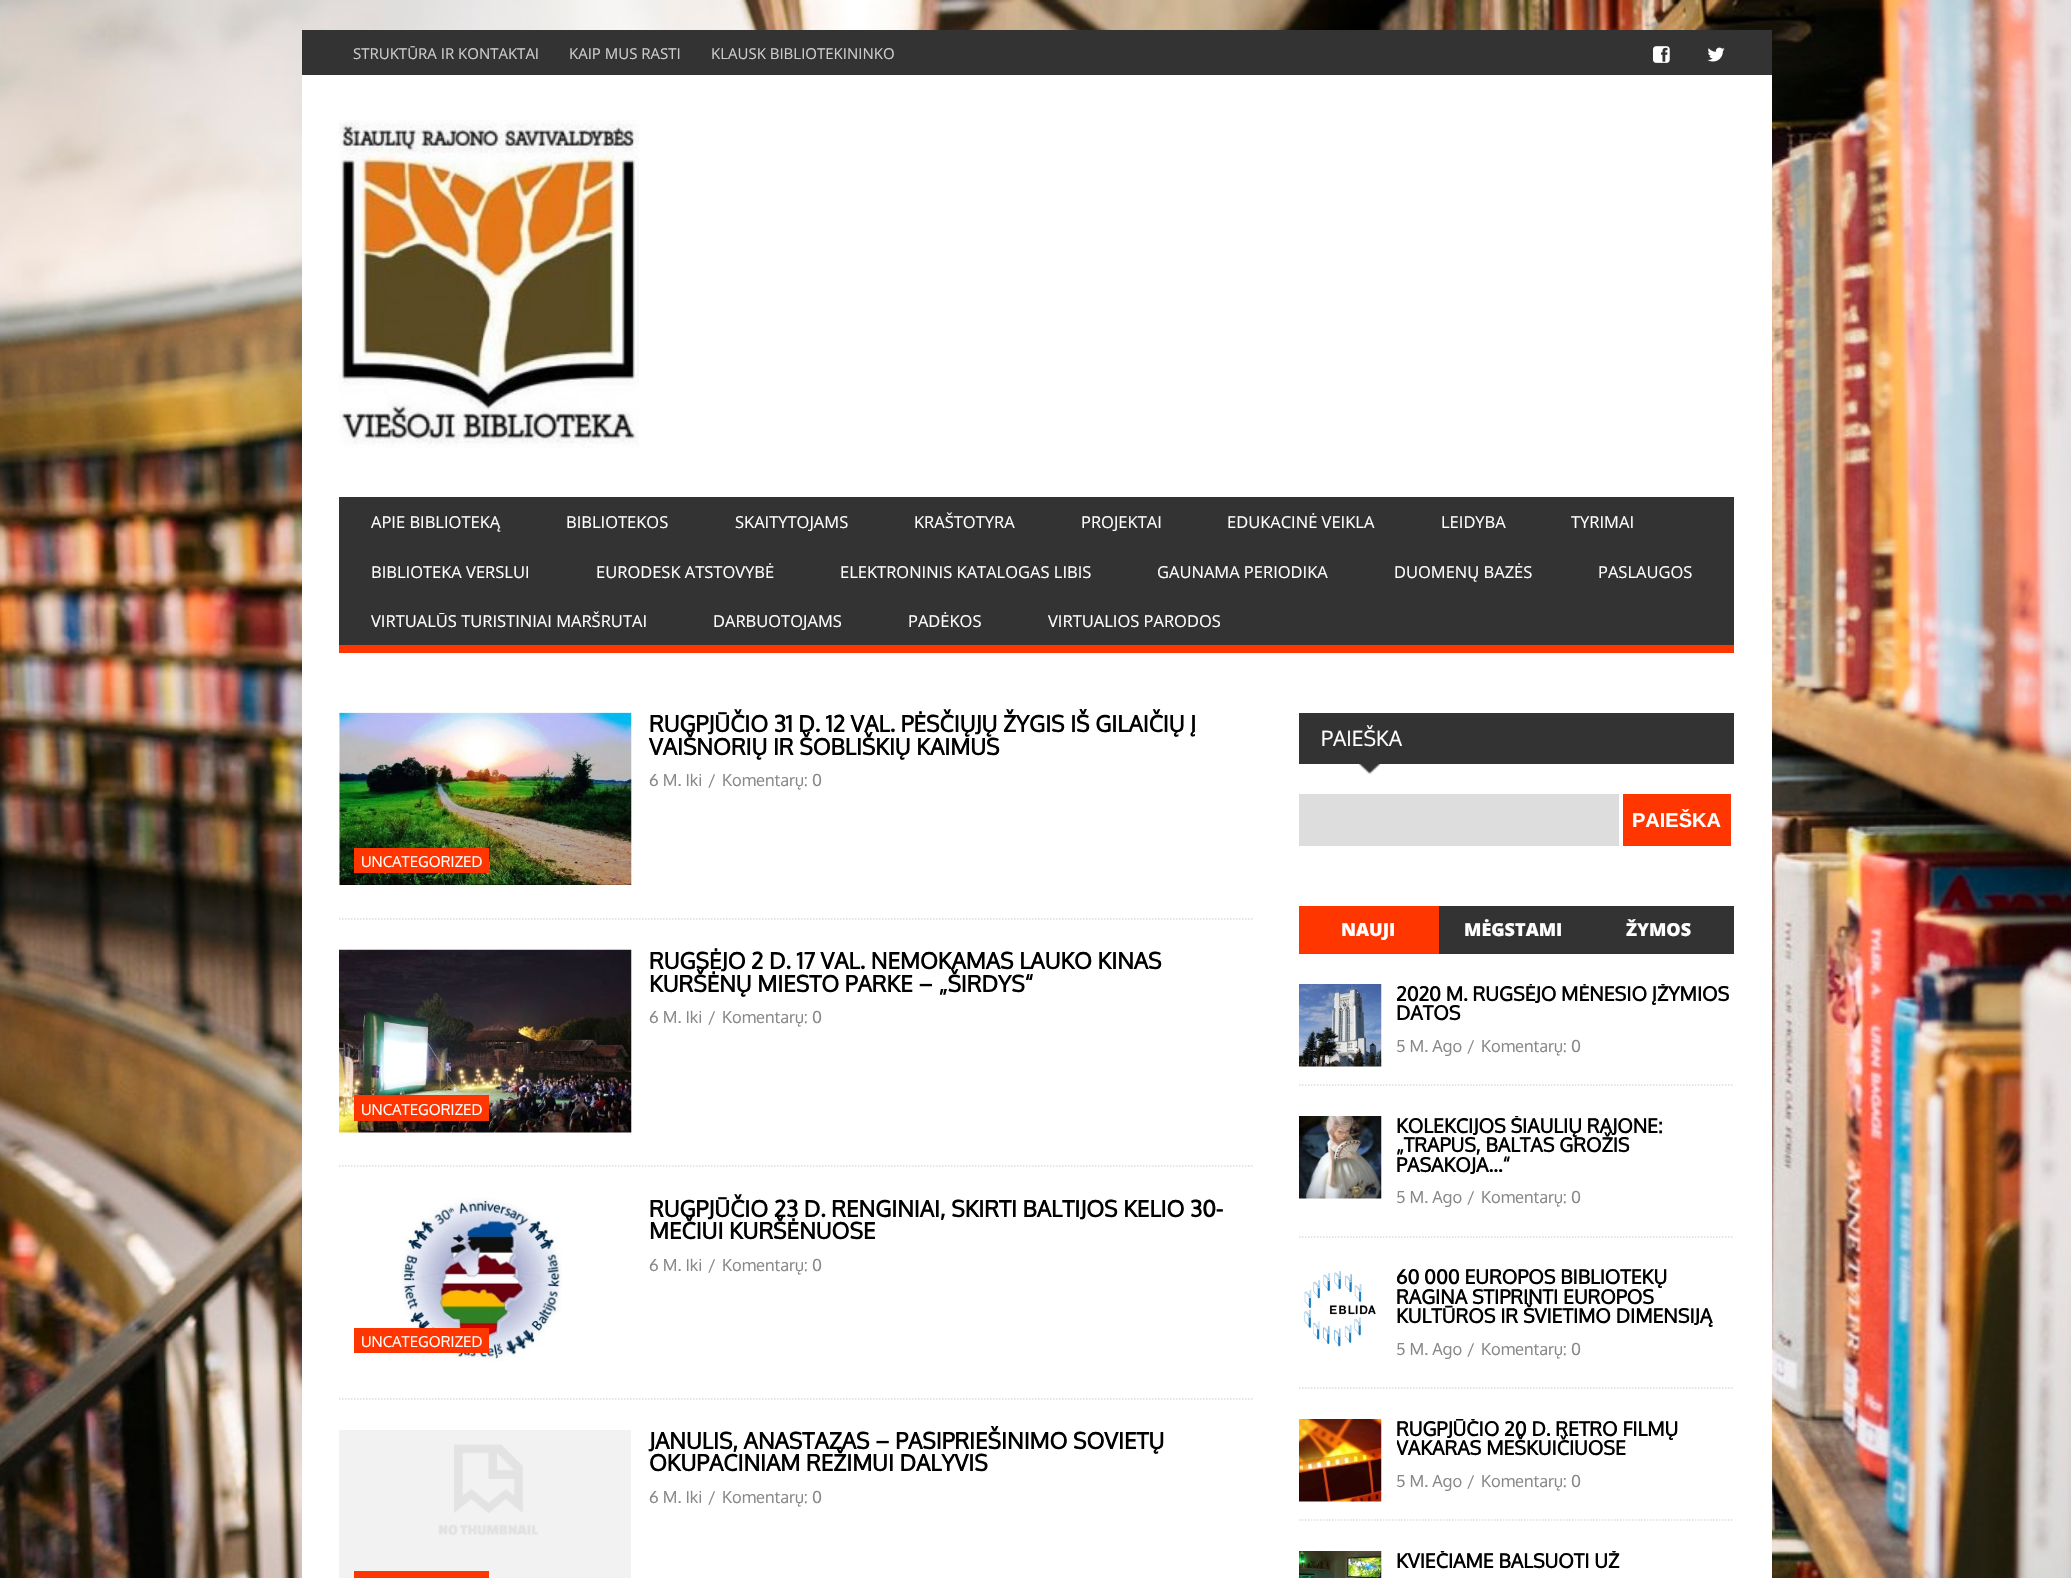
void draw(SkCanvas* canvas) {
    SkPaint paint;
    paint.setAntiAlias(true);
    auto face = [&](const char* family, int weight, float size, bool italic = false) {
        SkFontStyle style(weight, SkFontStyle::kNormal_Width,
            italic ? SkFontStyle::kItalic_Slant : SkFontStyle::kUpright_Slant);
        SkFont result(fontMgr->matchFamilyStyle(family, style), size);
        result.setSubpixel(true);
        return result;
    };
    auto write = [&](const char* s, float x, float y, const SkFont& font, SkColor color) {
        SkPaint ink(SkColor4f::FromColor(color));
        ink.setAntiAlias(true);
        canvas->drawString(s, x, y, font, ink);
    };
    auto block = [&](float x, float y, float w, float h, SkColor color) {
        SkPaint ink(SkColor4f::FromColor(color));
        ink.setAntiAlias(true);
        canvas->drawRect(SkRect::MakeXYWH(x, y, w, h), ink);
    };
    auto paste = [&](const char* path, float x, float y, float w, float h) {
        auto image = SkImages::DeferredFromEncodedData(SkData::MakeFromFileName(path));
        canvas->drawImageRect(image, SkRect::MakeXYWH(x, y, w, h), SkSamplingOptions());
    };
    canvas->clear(SK_ColorWHITE);
    paste("pic1.png", 0, 0, 2071, 1578);
    block(302, 75, 1470, 1503, SK_ColorWHITE);
    block(302, 30, 1470, 45, SkColorSetRGB(51, 51, 51));
    auto kFont1 = face("Open Sans", 400, 15);
    write("STRUKTŪRA IR KONTAKTAI", 353, 59, kFont1, SkColorSetRGB(204, 204, 204));
    write("KAIP MUS RASTI", 569, 59, kFont1, SkColorSetRGB(204, 204, 204));
    write("KLAUSK BIBLIOTEKININKO", 711, 59, kFont1, SkColorSetRGB(204, 204, 204));
    paste("pic2.png", 1653, 46, 17, 17);
    paste("pic3.png", 1707, 47, 18, 15);
    paste("pic4.png", 339, 120, 300, 328);
    block(339, 497, 1395, 148, SkColorSetRGB(51, 51, 51));
    block(339, 645, 1395, 8, SkColorSetRGB(255, 54, 0));
    auto kFont2 = face("Open Sans", 400, 16.5f);
    write("APIE BIBLIOTEKĄ", 371, 528, kFont2, SK_ColorWHITE);
    write("BIBLIOTEKOS", 566, 528, kFont2, SK_ColorWHITE);
    write("SKAITYTOJAMS", 735, 528, kFont2, SK_ColorWHITE);
    write("KRAŠTOTYRA", 914, 528, kFont2, SK_ColorWHITE);
    write("PROJEKTAI", 1081, 528, kFont2, SK_ColorWHITE);
    write("EDUKACINĖ VEIKLA", 1227, 528, kFont2, SK_ColorWHITE);
    write("LEIDYBA", 1441, 528, kFont2, SK_ColorWHITE);
    write("TYRIMAI", 1571, 528, kFont2, SK_ColorWHITE);
    write("BIBLIOTEKA VERSLUI", 371, 578, kFont2, SK_ColorWHITE);
    write("EURODESK ATSTOVYBĖ", 596, 578, kFont2, SK_ColorWHITE);
    write("ELEKTRONINIS KATALOGAS LIBIS", 840, 578, kFont2, SK_ColorWHITE);
    write("GAUNAMA PERIODIKA", 1157, 578, kFont2, SK_ColorWHITE);
    write("DUOMENŲ BAZĖS", 1394, 578, kFont2, SK_ColorWHITE);
    write("PASLAUGOS", 1598, 578, kFont2, SK_ColorWHITE);
    write("VIRTUALŪS TURISTINIAI MARŠRUTAI", 371, 627, kFont2, SK_ColorWHITE);
    write("DARBUOTOJAMS", 713, 627, kFont2, SK_ColorWHITE);
    write("PADĖKOS", 908, 627, kFont2, SK_ColorWHITE);
    write("VIRTUALIOS PARODOS", 1048, 627, kFont2, SK_ColorWHITE);
    paint.setStyle(SkPaint::kStroke_Style);
    paint.setStrokeWidth(1.5f);
    paint.setColor(SkColorSetRGB(221, 221, 221));
    paint.setPathEffect(SkDashPathEffect::Make({{1.5f, 1.5f}}, 0));
    canvas->drawPath(SkPathBuilder().moveTo(339, 919).lineTo(1254, 919).detach(), paint);
    paint.setPathEffect(nullptr);
    auto kFont3 = face("Oxygen", 700, 22.5f);
    write("RUGPJŪČIO 31 D. 12 VAL. PĖSČIŲJŲ ŽYGIS IŠ GILAIČIŲ Į", 649, 732, kFont3, SK_ColorBLACK);
    write("VAIŠNORIŲ IR ŠOBLIŠKIŲ KAIMUS", 649, 755, kFont3, SK_ColorBLACK);
    auto kFont4 = face("Oxygen", 400, 16.5f);
    write("6 M. Iki", 649, 786, kFont4, SkColorSetRGB(136, 136, 136));
    write("/", 708, 786, kFont4, SkColorSetRGB(136, 136, 136));
    write("Komentarų: 0", 722, 786, kFont4, SkColorSetRGB(136, 136, 136));
    paste("pic5.png", 339, 712, 293, 173);
    block(354, 848, 135, 25, SkColorSetRGB(255, 54, 0));
    auto kFont5 = face("Oxygen", 400, 15);
    write("UNCATEGORIZED", 361, 867, kFont5, SK_ColorWHITE);
    paint.setPathEffect(SkDashPathEffect::Make({{1.5f, 1.5f}}, 0));
    canvas->drawPath(SkPathBuilder().moveTo(339, 1166).lineTo(1254, 1166).detach(), paint);
    paint.setPathEffect(nullptr);
    write("RUGSĖJO 2 D. 17 VAL. NEMOKAMAS LAUKO KINAS", 649, 969, kFont3, SK_ColorBLACK);
    write("KURŠĖNŲ MIESTO PARKE – „ŠIRDYS“", 649, 992, kFont3, SK_ColorBLACK);
    write("6 M. Iki", 649, 1023, kFont4, SkColorSetRGB(136, 136, 136));
    write("/", 708, 1023, kFont4, SkColorSetRGB(136, 136, 136));
    write("Komentarų: 0", 722, 1023, kFont4, SkColorSetRGB(136, 136, 136));
    paste("pic6.png", 339, 949, 293, 184);
    block(354, 1095, 135, 26, SkColorSetRGB(255, 54, 0));
    write("UNCATEGORIZED", 361, 1115, kFont5, SK_ColorWHITE);
    paint.setPathEffect(SkDashPathEffect::Make({{1.5f, 1.5f}}, 0));
    canvas->drawPath(SkPathBuilder().moveTo(339, 1399).lineTo(1254, 1399).detach(), paint);
    paint.setPathEffect(nullptr);
    write("RUGPJŪČIO 23 D. RENGINIAI, SKIRTI BALTIJOS KELIO 30-", 649, 1217, kFont3, SK_ColorBLACK);
    write("MEČIUI KURŠĖNUOSE", 649, 1239, kFont3, SK_ColorBLACK);
    write("6 M. Iki", 649, 1271, kFont4, SkColorSetRGB(136, 136, 136));
    write("/", 708, 1271, kFont4, SkColorSetRGB(136, 136, 136));
    write("Komentarų: 0", 722, 1271, kFont4, SkColorSetRGB(136, 136, 136));
    paste("pic7.png", 401, 1197, 161, 164);
    block(354, 1328, 135, 25, SkColorSetRGB(255, 54, 0));
    write("UNCATEGORIZED", 361, 1347, kFont5, SK_ColorWHITE);
    paste("pic8.png", 339, 1430, 292, 148);
    block(354, 1571, 135, 7, SkColorSetRGB(255, 54, 0));
    write("JANULIS, ANASTAZAS – PASIPRIEŠINIMO SOVIETŲ", 649, 1449, kFont3, SK_ColorBLACK);
    write("OKUPACINIAM REŽIMUI DALYVIS", 649, 1471, kFont3, SK_ColorBLACK);
    write("6 M. Iki", 649, 1503, kFont4, SkColorSetRGB(136, 136, 136));
    write("/", 708, 1503, kFont4, SkColorSetRGB(136, 136, 136));
    write("Komentarų: 0", 722, 1503, kFont4, SkColorSetRGB(136, 136, 136));
    paste("pic9.png", 1359, 764, 21, 11);
    block(1299, 713, 435, 51, SkColorSetRGB(51, 51, 51));
    auto kFont6 = face("Oxygen", 400, 21);
    write("PAIEŠKA", 1321, 746, kFont6, SK_ColorWHITE);
    block(1299, 794, 320, 52, SkColorSetRGB(221, 221, 221));
    block(1623, 794, 108, 52, SkColorSetRGB(255, 54, 0));
    auto kFont7 = face("Liberation Sans", 700, 20);
    write("PAIEŠKA", 1632, 827, kFont7, SK_ColorWHITE);
    block(1439, 906, 295, 48, SkColorSetRGB(51, 51, 51));
    block(1299, 906, 140, 48, SkColorSetRGB(255, 54, 0));
    auto kFont8 = face("Open Sans", 800, 18);
    write("NAUJI", 1341, 936, kFont8, SK_ColorWHITE);
    write("MĖGSTAMI", 1464, 936, kFont8, SK_ColorWHITE);
    write("ŽYMOS", 1626, 936, kFont8, SK_ColorWHITE);
    paint.setPathEffect(SkDashPathEffect::Make({{1.5f, 1.5f}}, 0));
    canvas->drawPath(SkPathBuilder().moveTo(1299, 1085).lineTo(1734, 1085).detach(), paint);
    paint.setPathEffect(nullptr);
    paste("pic10.png", 1299, 984, 83, 83);
    canvas->save();
    canvas->clipRect(SkRect::MakeXYWH(1397, 984, 337, 86));
    auto kFont9 = face("Oxygen", 700, 19.5f);
    write("2020 M. RUGSĖJO MĖNESIO ĮŽYMIOS", 1396, 1001, kFont9, SK_ColorBLACK);
    canvas->restore();
    write("DATOS", 1396, 1020, kFont9, SK_ColorBLACK);
    write("5 M. Ago", 1396, 1052, kFont4, SkColorSetRGB(136, 136, 136));
    write("/", 1467, 1052, kFont4, SkColorSetRGB(136, 136, 136));
    write("Komentarų: 0", 1481, 1052, kFont4, SkColorSetRGB(136, 136, 136));
    paint.setPathEffect(SkDashPathEffect::Make({{1.5f, 1.5f}}, 0));
    canvas->drawPath(SkPathBuilder().moveTo(1299, 1237).lineTo(1734, 1237).detach(), paint);
    paint.setPathEffect(nullptr);
    paste("pic11.png", 1299, 1116, 83, 83);
    canvas->save();
    canvas->clipRect(SkRect::MakeXYWH(1397, 1116, 337, 105));
    write("KOLEKCIJOS ŠIAULIŲ RAJONE:", 1396, 1133, kFont9, SK_ColorBLACK);
    canvas->restore();
    write("„TRAPUS, BALTAS GROŽIS", 1396, 1152, kFont9, SK_ColorBLACK);
    write("PASAKOJA…“", 1396, 1172, kFont9, SK_ColorBLACK);
    write("5 M. Ago", 1396, 1203, kFont4, SkColorSetRGB(136, 136, 136));
    write("/", 1467, 1203, kFont4, SkColorSetRGB(136, 136, 136));
    write("Komentarų: 0", 1481, 1203, kFont4, SkColorSetRGB(136, 136, 136));
    paint.setPathEffect(SkDashPathEffect::Make({{1.5f, 1.5f}}, 0));
    canvas->drawPath(SkPathBuilder().moveTo(1299, 1388).lineTo(1734, 1388).detach(), paint);
    paint.setPathEffect(nullptr);
    paste("pic12.png", 1304, 1271, 72, 76);
    canvas->save();
    canvas->clipRect(SkRect::MakeXYWH(1397, 1268, 337, 105));
    write("60 000 EUROPOS BIBLIOTEKŲ", 1396, 1284, kFont9, SK_ColorBLACK);
    canvas->restore();
    write("RAGINA STIPRINTI EUROPOS", 1396, 1304, kFont9, SK_ColorBLACK);
    write("KULTŪROS IR ŠVIETIMO DIMENSIJĄ", 1396, 1323, kFont9, SK_ColorBLACK);
    write("5 M. Ago", 1396, 1355, kFont4, SkColorSetRGB(136, 136, 136));
    write("/", 1467, 1355, kFont4, SkColorSetRGB(136, 136, 136));
    write("Komentarų: 0", 1481, 1355, kFont4, SkColorSetRGB(136, 136, 136));
    paint.setPathEffect(SkDashPathEffect::Make({{1.5f, 1.5f}}, 0));
    canvas->drawPath(SkPathBuilder().moveTo(1299, 1520).lineTo(1734, 1520).detach(), paint);
    paint.setPathEffect(nullptr);
    paste("pic13.png", 1299, 1419, 83, 83);
    canvas->save();
    canvas->clipRect(SkRect::MakeXYWH(1397, 1419, 337, 86));
    write("RUGPJŪČIO 20 D. RETRO FILMŲ", 1396, 1436, kFont9, SK_ColorBLACK);
    write("VAKARAS MEŠKUIČIUOSE", 1396, 1455, kFont9, SK_ColorBLACK);
    canvas->restore();
    write("5 M. Ago", 1396, 1487, kFont4, SkColorSetRGB(136, 136, 136));
    write("/", 1467, 1487, kFont4, SkColorSetRGB(136, 136, 136));
    write("Komentarų: 0", 1481, 1487, kFont4, SkColorSetRGB(136, 136, 136));
    paste("pic14.png", 1299, 1551, 83, 27);
    canvas->save();
    canvas->clipRect(SkRect::MakeXYWH(1397, 1551, 337, 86));
    write("KVIEČIAME BALSUOTI UŽ", 1396, 1568, kFont9, SK_ColorBLACK);
    canvas->restore();
}
